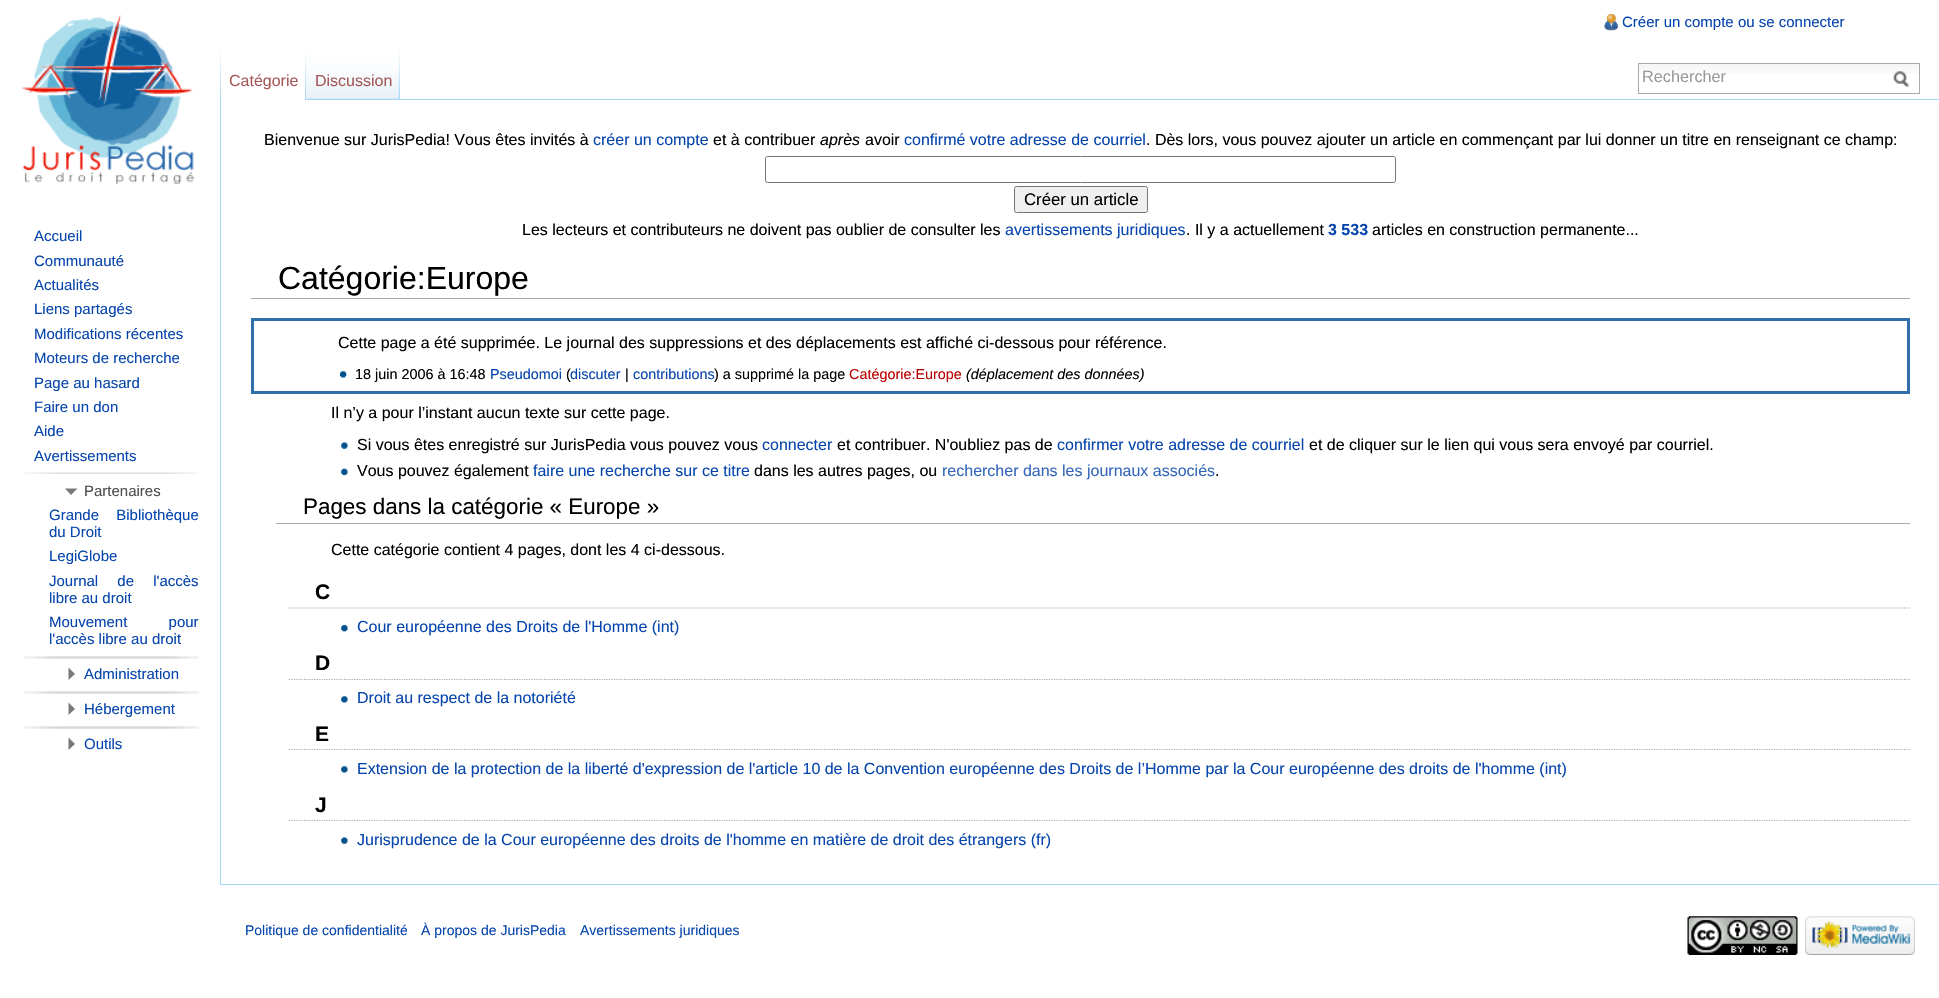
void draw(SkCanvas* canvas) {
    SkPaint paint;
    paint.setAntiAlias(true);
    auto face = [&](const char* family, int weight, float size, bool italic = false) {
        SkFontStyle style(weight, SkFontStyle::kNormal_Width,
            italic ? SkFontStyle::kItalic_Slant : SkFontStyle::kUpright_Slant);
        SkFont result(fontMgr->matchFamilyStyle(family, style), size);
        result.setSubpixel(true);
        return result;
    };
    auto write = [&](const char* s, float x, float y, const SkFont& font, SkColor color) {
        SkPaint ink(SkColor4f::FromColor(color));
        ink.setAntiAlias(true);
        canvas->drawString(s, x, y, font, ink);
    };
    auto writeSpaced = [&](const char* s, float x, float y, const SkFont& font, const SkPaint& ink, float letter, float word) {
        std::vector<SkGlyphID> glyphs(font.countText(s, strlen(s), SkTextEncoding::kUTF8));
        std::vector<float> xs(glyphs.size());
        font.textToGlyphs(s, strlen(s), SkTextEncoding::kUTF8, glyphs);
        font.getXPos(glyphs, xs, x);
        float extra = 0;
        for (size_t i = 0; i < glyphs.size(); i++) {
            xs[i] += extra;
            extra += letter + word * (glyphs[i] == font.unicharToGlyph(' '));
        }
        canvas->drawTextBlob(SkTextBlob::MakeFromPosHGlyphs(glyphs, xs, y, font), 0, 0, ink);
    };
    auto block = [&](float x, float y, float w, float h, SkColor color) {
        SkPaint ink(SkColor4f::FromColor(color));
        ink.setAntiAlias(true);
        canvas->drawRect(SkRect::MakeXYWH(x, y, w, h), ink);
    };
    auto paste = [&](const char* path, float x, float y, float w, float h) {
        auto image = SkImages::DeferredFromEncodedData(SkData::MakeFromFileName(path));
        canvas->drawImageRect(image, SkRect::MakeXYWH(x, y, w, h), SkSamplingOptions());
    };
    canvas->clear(SK_ColorWHITE);
    paste("pic1.png", 1604, 14, 14, 17);
    auto kFont1 = face("Liberation Sans", 400, 15);
    write("Créer un compte ou se connecter", 1622, 27, kFont1, SkColorSetRGB(6, 69, 173));
    paste("pic2.png", 220, 50, 1, 49);
    paste("pic3.png", 305, 50, 2, 50);
    auto kFont2 = face("Liberation Sans", 400, 16);
    write("Catégorie", 229, 86, kFont2, SkColorSetRGB(165, 88, 88));
    paste("pic4.png", 306, 50, 94, 50);
    paste("pic5.png", 398, 50, 2, 49);
    write("Discussion", 315, 86, kFont2, SkColorSetRGB(165, 88, 88));
    paste("pic6.png", 1637, 64, 282, 10);
    paint.setStyle(SkPaint::kStroke_Style);
    paint.setStrokeWidth(1);
    paint.setColor(SkColorSetRGB(170, 170, 170));
    canvas->drawRect(SkRect::MakeXYWH(1638.5f, 63.5f, 281, 30), paint);
    auto kFont3 = face("Liberation Sans", 400, 16.25f);
    write("Rechercher", 1642, 82, kFont3, SkColorSetRGB(153, 153, 153));
    paste("pic7.png", 1893, 71, 16, 17);
    paste("pic8.png", 22, 15, 172, 169);
    write("Accueil", 34, 241, kFont1, SkColorSetRGB(6, 69, 173));
    write("Communauté", 34, 266, kFont1, SkColorSetRGB(6, 69, 173));
    write("Actualités", 34, 290, kFont1, SkColorSetRGB(6, 69, 173));
    write("Liens partagés", 34, 314, kFont1, SkColorSetRGB(6, 69, 173));
    write("Modifications récentes", 34, 339, kFont1, SkColorSetRGB(6, 69, 173));
    write("Moteurs de recherche", 34, 363, kFont1, SkColorSetRGB(6, 69, 173));
    write("Page au hasard", 34, 388, kFont1, SkColorSetRGB(6, 69, 173));
    write("Faire un don", 34, 412, kFont1, SkColorSetRGB(6, 69, 173));
    write("Aide", 34, 436, kFont1, SkColorSetRGB(6, 69, 173));
    write("Avertissements", 34, 461, kFont1, SkColorSetRGB(6, 69, 173));
    paste("pic9.png", 24, 472, 175, 2);
    paint.setStyle(SkPaint::kFill_Style);
    paint.setColor(SkColorSetRGB(121, 121, 121));
    canvas->drawPath(SkPathBuilder().moveTo(77.5f, 488.5f).lineTo(71, 495).lineTo(65, 488.5f).close().detach(), paint);
    write("Partenaires", 84, 496, kFont1, SkColorSetRGB(77, 77, 77));
    paint.setColor(SkColorSetRGB(6, 69, 173));
    writeSpaced("Grande Bibliothèque", 49, 520, kFont1, paint, 0, 13);
    write("du Droit", 49, 537, kFont1, SkColorSetRGB(6, 69, 173));
    write("LegiGlobe", 49, 561, kFont1, SkColorSetRGB(6, 69, 173));
    writeSpaced("Journal de l'accès", 49, 586, kFont1, paint, 0, 15);
    write("libre au droit", 49, 603, kFont1, SkColorSetRGB(6, 69, 173));
    writeSpaced("Mouvement pour", 49, 627, kFont1, paint, 0, 37);
    write("l'accès libre au droit", 49, 644, kFont1, SkColorSetRGB(6, 69, 173));
    paste("pic10.png", 24, 656, 175, 3);
    paint.setColor(SkColorSetRGB(121, 121, 121));
    canvas->drawPath(SkPathBuilder().moveTo(68.5f, 667.5f).lineTo(75, 674).lineTo(68.5f, 680).close().detach(), paint);
    write("Administration", 84, 679, kFont1, SkColorSetRGB(6, 69, 173));
    paste("pic10.png", 24, 691, 175, 3);
    canvas->drawPath(SkPathBuilder().moveTo(68.5f, 702.5f).lineTo(75, 709).lineTo(68.5f, 715).close().detach(), paint);
    write("Hébergement", 84, 714, kFont1, SkColorSetRGB(6, 69, 173));
    paste("pic10.png", 24, 726, 175, 3);
    canvas->drawPath(SkPathBuilder().moveTo(68.5f, 737.5f).lineTo(75, 744).lineTo(68.5f, 750).close().detach(), paint);
    write("Outils", 84, 749, kFont1, SkColorSetRGB(6, 69, 173));
    block(400, 99, 1539, 1, SkColorSetRGB(167, 215, 249));
    block(220, 884, 1719, 1, SkColorSetRGB(167, 215, 249));
    block(220, 99, 1, 786, SkColorSetRGB(167, 215, 249));
    write("Bienvenue sur JurisPedia! Vous êtes invités à", 264, 145, kFont2, SK_ColorBLACK);
    write("créer un compte", 593, 145, kFont2, SkColorSetRGB(6, 69, 173));
    write("et à contribuer", 713, 145, kFont2, SK_ColorBLACK);
    auto kFont4 = face("Liberation Sans", 400, 16, true);
    write("après", 820, 145, kFont4, SK_ColorBLACK);
    write("avoir", 865, 145, kFont2, SK_ColorBLACK);
    write("confirmé votre adresse de courriel", 904, 145, kFont2, SkColorSetRGB(6, 69, 173));
    write(". Dès lors, vous pouvez ajouter un article en commençant par lui donner un titre en renseignant ce champ:", 1146, 145, kFont2, SK_ColorBLACK);
    paint.setStyle(SkPaint::kStroke_Style);
    paint.setColor(SkColorSetRGB(118, 118, 118));
    canvas->drawRoundRect(SkRect::MakeXYWH(765.5f, 156.5f, 630, 26), 2, 2, paint);
    paint.setStyle(SkPaint::kFill_Style);
    paint.setColor(SkColorSetRGB(239, 239, 239));
    canvas->drawRoundRect(SkRect::MakeXYWH(1014.5f, 186.5f, 133, 26), 2, 2, paint);
    paint.setStyle(SkPaint::kStroke_Style);
    paint.setColor(SkColorSetRGB(118, 118, 118));
    canvas->drawRoundRect(SkRect::MakeXYWH(1014.5f, 186.5f, 133, 26), 2, 2, paint);
    auto kFont5 = face("Liberation Sans", 400, 16.75f);
    write("Créer un article", 1024, 205, kFont5, SK_ColorBLACK);
    write("Les lecteurs et contributeurs ne doivent pas oublier de consulter les", 522, 235, kFont2, SK_ColorBLACK);
    write("avertissements juridiques", 1005, 235, kFont2, SkColorSetRGB(6, 69, 173));
    write(". Il y a actuellement", 1186, 235, kFont2, SK_ColorBLACK);
    auto kFont6 = face("Liberation Sans", 700, 16);
    write("3 533", 1328, 235, kFont6, SkColorSetRGB(6, 69, 173));
    write("articles en construction permanente...", 1372, 235, kFont2, SK_ColorBLACK);
    block(251, 298, 1659, 1, SkColorSetRGB(170, 170, 170));
    auto kFont7 = face("Liberation Sans", 400, 32);
    write("Catégorie:Europe", 278, 289, kFont7, SK_ColorBLACK);
    paint.setStrokeWidth(3);
    paint.setColor(SkColorSetRGB(47, 111, 171));
    canvas->drawRect(SkRect::MakeXYWH(252.5f, 319.5f, 1656, 73), paint);
    write("Cette page a été supprimée. Le journal des suppressions et des déplacements est affiché ci-dessous pour référence.", 338, 348, kFont2, SK_ColorBLACK);
    paste("pic11.png", 340, 371, 7, 7);
    auto kFont8 = face("Liberation Sans", 400, 14.4f);
    write("18 juin 2006 à 16:48", 355, 379, kFont8, SK_ColorBLACK);
    write("Pseudomoi", 490, 379, kFont8, SkColorSetRGB(6, 69, 173));
    write("(", 566, 379, kFont8, SK_ColorBLACK);
    write("discuter", 570, 379, kFont8, SkColorSetRGB(6, 69, 173));
    write("|", 625, 379, kFont8, SK_ColorBLACK);
    write("contributions", 633, 379, kFont8, SkColorSetRGB(6, 69, 173));
    write(") a supprimé la page", 714, 379, kFont8, SK_ColorBLACK);
    write("Catégorie:Europe", 849, 379, kFont8, SkColorSetRGB(186, 0, 0));
    auto kFont9 = face("Liberation Sans", 400, 14.4f, true);
    write("(déplacement des données)", 966, 379, kFont9, SK_ColorBLACK);
    write("Il n’y a pour l’instant aucun texte sur cette page.", 331, 418, kFont2, SK_ColorBLACK);
    paste("pic12.png", 341, 442, 7, 7);
    write("Si vous êtes enregistré sur JurisPedia vous pouvez vous", 357, 450, kFont2, SK_ColorBLACK);
    write("connecter", 762, 450, kFont2, SkColorSetRGB(6, 69, 173));
    write("et contribuer. N'oubliez pas de", 837, 450, kFont2, SK_ColorBLACK);
    write("confirmer votre adresse de courriel", 1057, 450, kFont2, SkColorSetRGB(6, 69, 173));
    write("et de cliquer sur le lien qui vous sera envoyé par courriel.", 1309, 450, kFont2, SK_ColorBLACK);
    paste("pic13.png", 341, 468, 7, 8);
    write("Vous pouvez également", 357, 476, kFont2, SK_ColorBLACK);
    write("faire une recherche sur ce titre", 533, 476, kFont2, SkColorSetRGB(6, 69, 173));
    write("dans les autres pages, ou", 754, 476, kFont2, SK_ColorBLACK);
    write("rechercher dans les journaux associés", 942, 476, kFont2, SkColorSetRGB(51, 102, 187));
    write(".", 1215, 476, kFont2, SK_ColorBLACK);
    block(276, 523, 1634, 1, SkColorSetRGB(170, 170, 170));
    auto kFont10 = face("Liberation Sans", 400, 22.4f);
    write("Pages dans la catégorie « Europe »", 303, 514, kFont10, SK_ColorBLACK);
    write("Cette catégorie contient 4 pages, dont les 4 ci-dessous.", 331, 555, kFont2, SK_ColorBLACK);
    paint.setStrokeWidth(1.2f);
    paint.setColor(SkColorSetRGB(170, 170, 170));
    paint.setPathEffect(SkDashPathEffect::Make({{1.25f, 1.25f}}, 0));
    canvas->drawPath(SkPathBuilder().moveTo(289, 608).lineTo(1910, 608).detach(), paint);
    paint.setPathEffect(nullptr);
    auto kFont11 = face("Liberation Sans", 700, 21);
    write("C", 315, 599, kFont11, SK_ColorBLACK);
    paste("pic14.png", 341, 624, 7, 8);
    write("Cour européenne des Droits de l'Homme (int)", 357, 632, kFont2, SkColorSetRGB(6, 69, 173));
    paint.setPathEffect(SkDashPathEffect::Make({{1.25f, 1.25f}}, 0));
    canvas->drawPath(SkPathBuilder().moveTo(289, 679.5f).lineTo(1910, 679.5f).detach(), paint);
    paint.setPathEffect(nullptr);
    write("D", 315, 670, kFont11, SK_ColorBLACK);
    paste("pic15.png", 341, 696, 7, 7);
    write("Droit au respect de la notoriété", 357, 703, kFont2, SkColorSetRGB(6, 69, 173));
    paint.setPathEffect(SkDashPathEffect::Make({{1.25f, 1.25f}}, 0));
    canvas->drawPath(SkPathBuilder().moveTo(289, 749.5f).lineTo(1910, 749.5f).detach(), paint);
    paint.setPathEffect(nullptr);
    write("E", 315, 741, kFont11, SK_ColorBLACK);
    paste("pic15.png", 341, 766, 7, 7);
    write("Extension de la protection de la liberté d'expression de l'article 10 de la Convention européenne des Droits de l’Homme par la Cour européenne des droits de l'homme (int)", 357, 774, kFont2, SkColorSetRGB(6, 69, 173));
    paint.setPathEffect(SkDashPathEffect::Make({{1.25f, 1.25f}}, 0));
    canvas->drawPath(SkPathBuilder().moveTo(289, 820.5f).lineTo(1910, 820.5f).detach(), paint);
    paint.setPathEffect(nullptr);
    write("J", 315, 812, kFont11, SK_ColorBLACK);
    paste("pic12.png", 341, 837, 7, 7);
    write("Jurisprudence de la Cour européenne des droits de l'homme en matière de droit des étrangers (fr)", 357, 845, kFont2, SkColorSetRGB(6, 69, 173));
    auto kFont12 = face("Liberation Sans", 400, 14);
    write("Politique de confidentialité", 245, 935, kFont12, SkColorSetRGB(6, 69, 173));
    write("À propos de JurisPedia", 421, 935, kFont12, SkColorSetRGB(6, 69, 173));
    write("Avertissements juridiques", 580, 935, kFont12, SkColorSetRGB(6, 69, 173));
    paste("pic16.png", 1687, 916, 111, 39);
    paste("pic17.png", 1805, 916, 110, 39);
}
